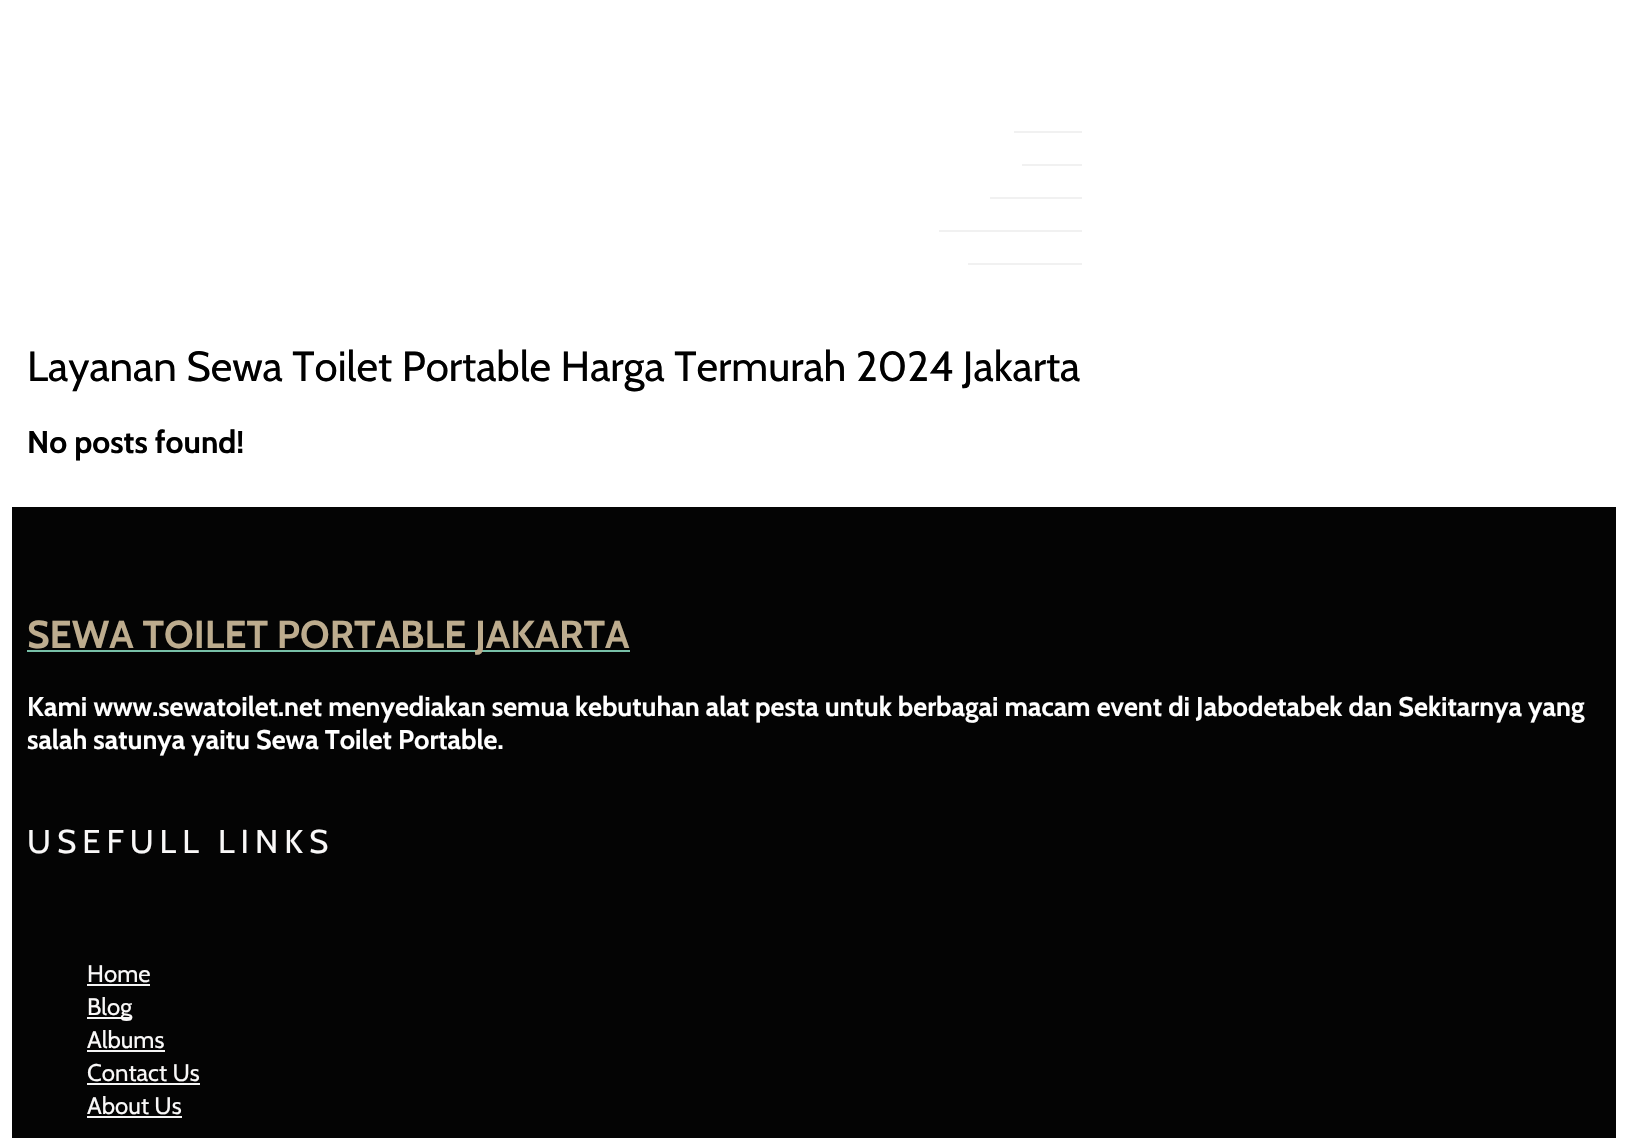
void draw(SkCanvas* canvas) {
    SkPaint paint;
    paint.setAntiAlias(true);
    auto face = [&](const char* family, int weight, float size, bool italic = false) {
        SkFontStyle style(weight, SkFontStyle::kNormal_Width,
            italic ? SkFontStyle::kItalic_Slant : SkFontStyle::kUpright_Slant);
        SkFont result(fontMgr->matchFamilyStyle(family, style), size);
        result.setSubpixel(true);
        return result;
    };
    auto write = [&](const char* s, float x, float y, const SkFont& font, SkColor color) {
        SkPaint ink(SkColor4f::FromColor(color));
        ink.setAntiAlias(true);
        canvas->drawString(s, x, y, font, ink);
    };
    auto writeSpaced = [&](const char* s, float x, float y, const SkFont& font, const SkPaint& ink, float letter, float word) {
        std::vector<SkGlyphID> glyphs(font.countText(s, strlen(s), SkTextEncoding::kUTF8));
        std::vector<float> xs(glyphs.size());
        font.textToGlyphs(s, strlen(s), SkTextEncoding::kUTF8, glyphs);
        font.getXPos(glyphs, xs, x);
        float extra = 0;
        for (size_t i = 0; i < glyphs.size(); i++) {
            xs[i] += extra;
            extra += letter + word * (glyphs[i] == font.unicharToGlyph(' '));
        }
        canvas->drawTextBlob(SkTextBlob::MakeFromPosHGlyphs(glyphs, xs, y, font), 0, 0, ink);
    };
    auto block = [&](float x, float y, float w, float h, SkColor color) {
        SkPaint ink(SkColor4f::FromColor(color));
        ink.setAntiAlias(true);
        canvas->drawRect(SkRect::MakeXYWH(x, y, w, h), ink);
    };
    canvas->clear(SK_ColorWHITE);
    block(1014, 131, 68, 2, SkColorSetRGB(241, 241, 241));
    block(1022, 164, 60, 2, SkColorSetRGB(241, 241, 241));
    block(990, 197, 92, 2, SkColorSetRGB(241, 241, 241));
    block(939, 230, 143, 2, SkColorSetRGB(241, 241, 241));
    block(968, 263, 114, 2, SkColorSetRGB(241, 241, 241));
    auto kFont1 = face("Cabin", 400, 42);
    write("Layanan Sewa Toilet Portable Harga Termurah 2024 Jakarta", 27, 381, kFont1, SK_ColorBLACK);
    auto kFont2 = face("Cabin", 700, 31.5f);
    write("No posts found!", 27, 453, kFont2, SK_ColorBLACK);
    block(12, 507, 1604, 631, SkColorSetRGB(4, 4, 4));
    block(27, 650, 603, 2, SkColorSetRGB(120, 192, 168));
    auto kFont3 = face("Cabin", 700, 39);
    write("SEWA TOILET PORTABLE JAKARTA", 27, 648, kFont3, SkColorSetRGB(189, 172, 142));
    auto kFont4 = face("Cabin", 700, 27);
    write("Kami www.sewatoilet.net menyediakan semua kebutuhan alat pesta untuk berbagai macam event di Jabodetabek dan Sekitarnya yang", 27, 716, kFont4, SK_ColorWHITE);
    write("salah satunya yaitu Sewa Toilet Portable.", 27, 749, kFont4, SK_ColorWHITE);
    auto kFont5 = face("Cabin", 400, 33);
    paint.setColor(SkColorSetRGB(249, 248, 248));
    writeSpaced("USEFULL LINKS", 27, 853, kFont5, paint, 6, 0);
    auto kFont6 = face("Cabin", 400, 24);
    write("Home", 87, 982, kFont6, SkColorSetRGB(249, 248, 248));
    block(87, 984, 63, 2, SkColorSetRGB(245, 245, 245));
    block(87, 1017, 45, 2, SkColorSetRGB(245, 245, 245));
    write("Blog", 87, 1015, kFont6, SkColorSetRGB(249, 248, 248));
    write("Albums", 87, 1048, kFont6, SkColorSetRGB(249, 248, 248));
    block(87, 1050, 78, 2, SkColorSetRGB(245, 245, 245));
    write("Contact Us", 87, 1081, kFont6, SkColorSetRGB(249, 248, 248));
    block(87, 1083, 113, 2, SkColorSetRGB(245, 245, 245));
    write("About Us", 87, 1114, kFont6, SkColorSetRGB(249, 248, 248));
    block(87, 1116, 95, 2, SkColorSetRGB(245, 245, 245));
}
